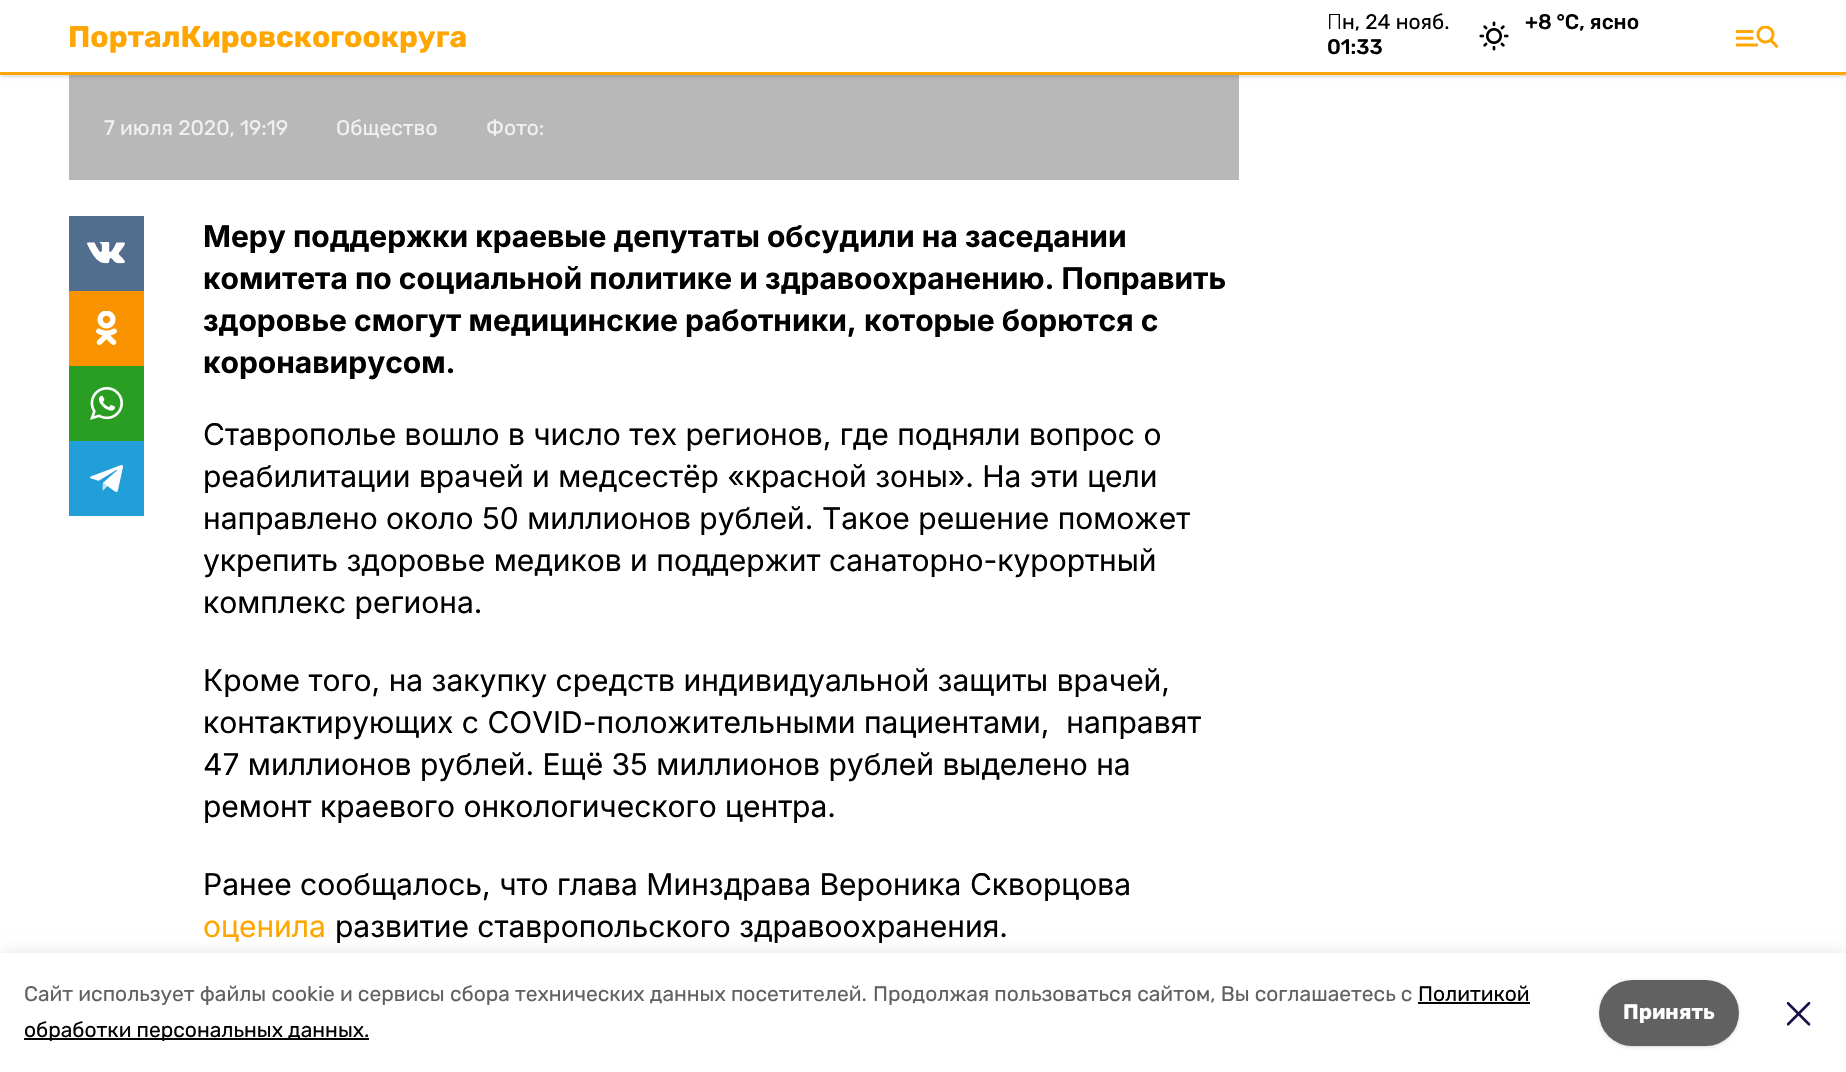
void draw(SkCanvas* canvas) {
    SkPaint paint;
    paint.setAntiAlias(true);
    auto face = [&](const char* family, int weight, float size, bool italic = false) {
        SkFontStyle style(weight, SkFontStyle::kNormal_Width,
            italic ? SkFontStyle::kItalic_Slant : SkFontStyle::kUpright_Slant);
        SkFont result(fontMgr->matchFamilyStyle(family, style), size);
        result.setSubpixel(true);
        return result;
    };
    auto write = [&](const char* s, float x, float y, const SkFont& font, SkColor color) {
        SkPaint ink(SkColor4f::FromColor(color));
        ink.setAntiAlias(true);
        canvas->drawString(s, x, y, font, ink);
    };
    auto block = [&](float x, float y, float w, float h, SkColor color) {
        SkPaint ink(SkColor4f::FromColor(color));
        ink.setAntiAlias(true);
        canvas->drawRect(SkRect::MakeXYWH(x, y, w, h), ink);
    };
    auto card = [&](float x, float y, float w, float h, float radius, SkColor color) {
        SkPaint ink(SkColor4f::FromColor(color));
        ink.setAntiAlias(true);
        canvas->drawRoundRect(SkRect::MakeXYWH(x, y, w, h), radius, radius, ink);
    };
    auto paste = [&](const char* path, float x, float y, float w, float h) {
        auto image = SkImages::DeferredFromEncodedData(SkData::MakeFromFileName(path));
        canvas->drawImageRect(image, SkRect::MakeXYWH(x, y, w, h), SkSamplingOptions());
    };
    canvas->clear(SK_ColorWHITE);
    block(69, 75, 1170, 105, SkColorSetRGB(184, 184, 184));
    paint.setColor(SkColorSetARGB(26, 0, 0, 0));
    paint.setMaskFilter(SkMaskFilter::MakeBlur(kNormal_SkBlurStyle, 1.5f));
    canvas->drawRect(SkRect::MakeXYWH(2, 3, 1843, 72), paint);
    paint.setMaskFilter(nullptr);
    paint.setMaskFilter(SkMaskFilter::MakeBlur(kNormal_SkBlurStyle, 2));
    canvas->drawRect(SkRect::MakeXYWH(0, 2, 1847, 75), paint);
    paint.setMaskFilter(nullptr);
    block(0, 0, 1846, 72, SK_ColorWHITE);
    block(0, 72, 1846, 3, SkColorSetRGB(255, 166, 0));
    auto kFont1 = face("Rubik", 700, 30);
    write("Портал Кировского округа", 68, 47, kFont1, SkColorSetRGB(255, 166, 0));
    auto kFont2 = face("Noto Sans", 300, 21);
    write("П", 1327, 29, kFont2, SK_ColorBLACK);
    auto kFont3 = face("Rubik", 400, 21);
    write("н, 24 нояб.", 1342, 29, kFont3, SK_ColorBLACK);
    auto kFont4 = face("Rubik", 500, 21);
    write("01:33", 1327, 54, kFont4, SK_ColorBLACK);
    paste("pic1.png", 1479, 21, 30, 30);
    write("+8 °С, ясно", 1525, 29, kFont4, SK_ColorBLACK);
    paste("pic2.png", 1736, 26, 43, 22);
    write("7 июля 2020, 19:19", 104, 135, kFont3, SkColorSetRGB(241, 241, 241));
    write("Общество", 336, 135, kFont3, SkColorSetRGB(241, 241, 241));
    write("Фото:", 486, 135, kFont3, SkColorSetRGB(241, 241, 241));
    block(69, 216, 75, 75, SkColorSetRGB(82, 110, 143));
    paste("pic3.png", 87, 242, 38, 22);
    block(69, 291, 75, 75, SkColorSetRGB(249, 148, 0));
    paste("pic4.png", 96, 311, 21, 34);
    block(69, 366, 75, 75, SkColorSetRGB(42, 158, 34));
    paste("pic5.png", 90, 387, 33, 33);
    block(69, 441, 75, 75, SkColorSetRGB(34, 158, 217));
    paste("pic6.png", 90, 465, 33, 27);
    auto kFont5 = face("Inter", 700, 30);
    write("Меру поддержки краевые депутаты обсудили на заседании", 203, 247, kFont5, SK_ColorBLACK);
    write("комитета по социальной политике и здравоохранению. Поправить", 203, 289, kFont5, SK_ColorBLACK);
    write("здоровье смогут медицинские работники, которые борются с", 203, 331, kFont5, SK_ColorBLACK);
    write("коронавирусом.", 203, 373, kFont5, SK_ColorBLACK);
    auto kFont6 = face("Inter", 400, 30);
    write("Ставрополье вошло в число тех регионов, где подняли вопрос о", 203, 445, kFont6, SK_ColorBLACK);
    write("реабилитации врачей и медсестёр «красной зоны». На эти цели", 203, 487, kFont6, SK_ColorBLACK);
    write("направлено около 50 миллионов рублей. Такое решение поможет", 203, 529, kFont6, SK_ColorBLACK);
    write("укрепить здоровье медиков и поддержит санаторно-курортный", 203, 571, kFont6, SK_ColorBLACK);
    write("комплекс региона.", 203, 613, kFont6, SK_ColorBLACK);
    write("Кроме того, на закупку средств индивидуальной защиты врачей,", 203, 691, kFont6, SK_ColorBLACK);
    write("контактирующих с COVID-положительными пациентами,  направят", 203, 733, kFont6, SK_ColorBLACK);
    write("47 миллионов рублей. Ещё 35 миллионов рублей выделено на", 203, 775, kFont6, SK_ColorBLACK);
    write("ремонт краевого онкологического центра.", 203, 817, kFont6, SK_ColorBLACK);
    write("Ранее сообщалось, что глава Минздрава Вероника Скворцова", 203, 895, kFont6, SK_ColorBLACK);
    write("оценила", 203, 937, kFont6, SkColorSetRGB(255, 166, 0));
    write("развитие ставропольского здравоохранения.", 335, 937, kFont6, SK_ColorBLACK);
    paint.setMaskFilter(SkMaskFilter::MakeBlur(kNormal_SkBlurStyle, 7.5f));
    canvas->drawRect(SkRect::MakeXYWH(0, 953, 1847, 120), paint);
    paint.setMaskFilter(nullptr);
    block(0, 953, 1846, 119, SK_ColorWHITE);
    write("Cайт использует файлы cookie и сервисы сбора технических данных посетителей.", 24, 1001, kFont3, SkColorSetRGB(97, 97, 97));
    write("Продолжая пользоваться сайтом, Вы соглашаетесь с", 873, 1001, kFont3, SkColorSetRGB(97, 97, 97));
    write("Политикой", 1418, 1001, kFont3, SK_ColorBLACK);
    block(1418, 1002, 112, 2, SK_ColorBLACK);
    block(24, 1038, 345, 2, SK_ColorBLACK);
    write("обработки персональных данных.", 24, 1037, kFont3, SK_ColorBLACK);
    paint.setMaskFilter(SkMaskFilter::MakeBlur(kNormal_SkBlurStyle, 1.5f));
    canvas->drawRoundRect(SkRect::MakeXYWH(1601, 983, 136, 63), 31.5f, 31.5f, paint);
    paint.setMaskFilter(nullptr);
    paint.setMaskFilter(SkMaskFilter::MakeBlur(kNormal_SkBlurStyle, 2));
    canvas->drawRoundRect(SkRect::MakeXYWH(1599, 981, 140, 66), 33, 33, paint);
    paint.setMaskFilter(nullptr);
    card(1599, 980, 140, 66, 33, SkColorSetRGB(97, 97, 97));
    auto kFont7 = face("Rubik", 700, 21);
    write("Принять", 1623, 1019, kFont7, SK_ColorWHITE);
    paste("pic7.png", 1787, 1002, 24, 24);
}
